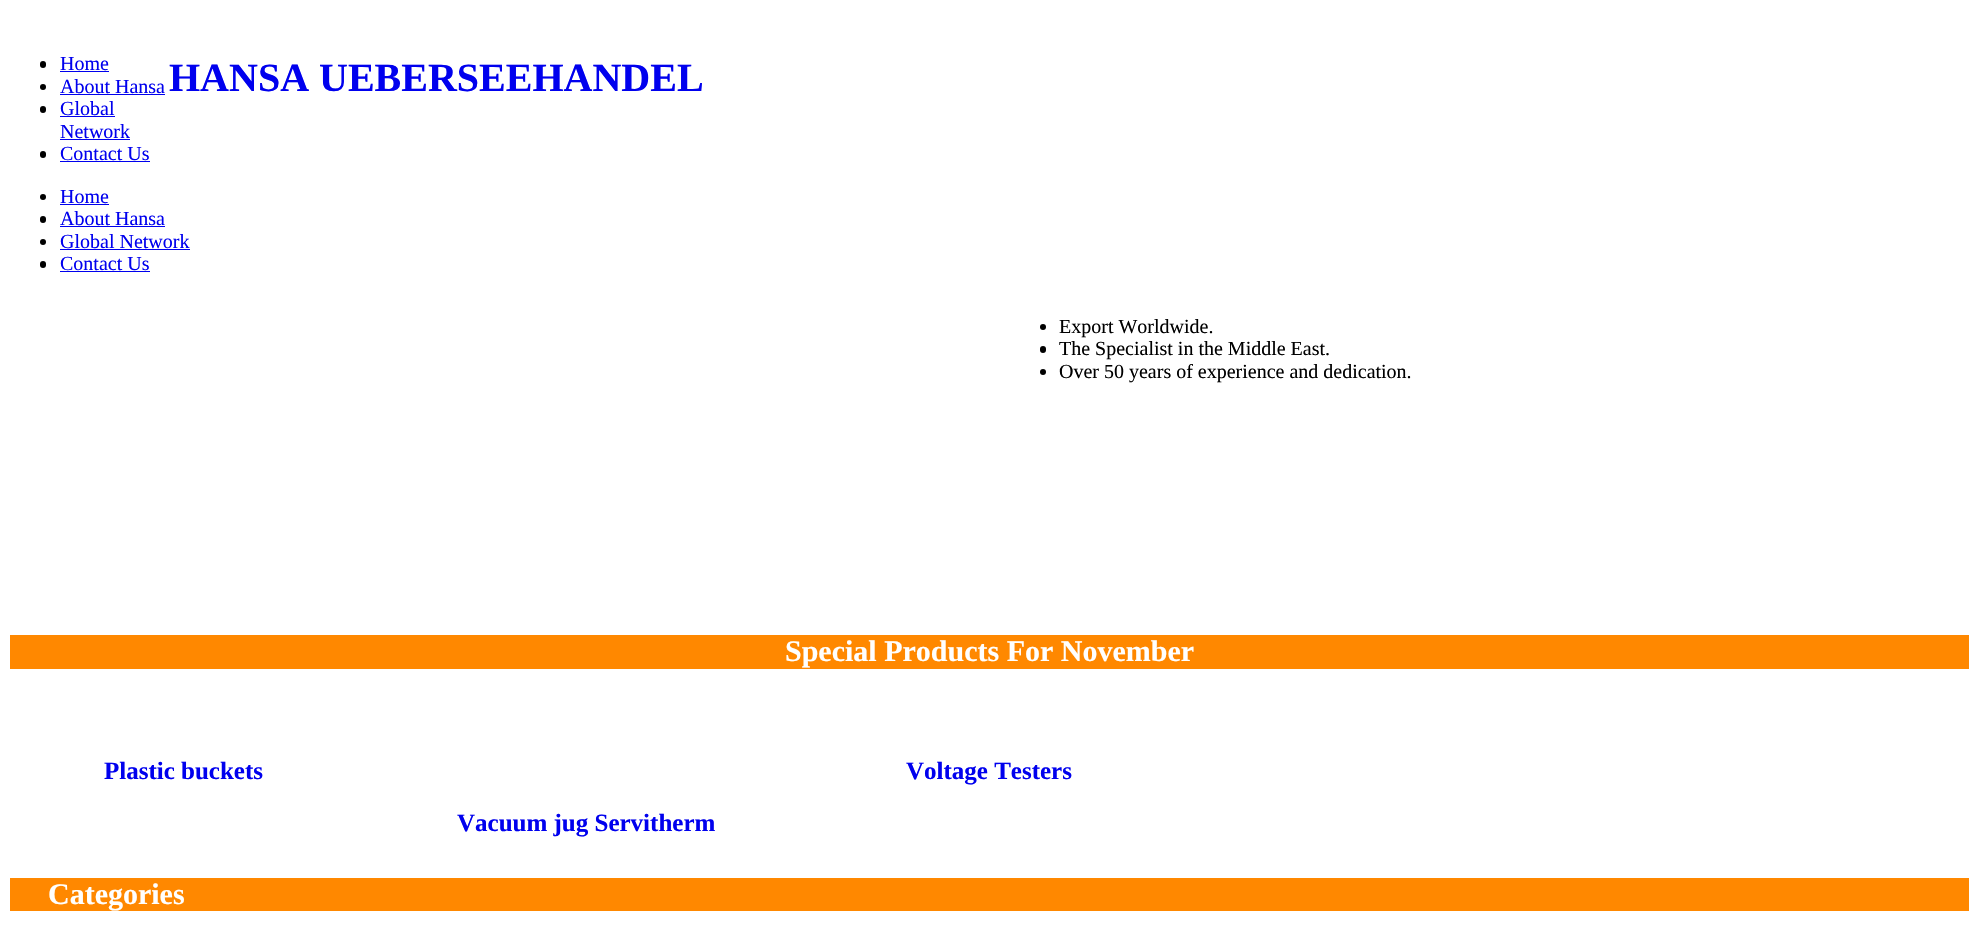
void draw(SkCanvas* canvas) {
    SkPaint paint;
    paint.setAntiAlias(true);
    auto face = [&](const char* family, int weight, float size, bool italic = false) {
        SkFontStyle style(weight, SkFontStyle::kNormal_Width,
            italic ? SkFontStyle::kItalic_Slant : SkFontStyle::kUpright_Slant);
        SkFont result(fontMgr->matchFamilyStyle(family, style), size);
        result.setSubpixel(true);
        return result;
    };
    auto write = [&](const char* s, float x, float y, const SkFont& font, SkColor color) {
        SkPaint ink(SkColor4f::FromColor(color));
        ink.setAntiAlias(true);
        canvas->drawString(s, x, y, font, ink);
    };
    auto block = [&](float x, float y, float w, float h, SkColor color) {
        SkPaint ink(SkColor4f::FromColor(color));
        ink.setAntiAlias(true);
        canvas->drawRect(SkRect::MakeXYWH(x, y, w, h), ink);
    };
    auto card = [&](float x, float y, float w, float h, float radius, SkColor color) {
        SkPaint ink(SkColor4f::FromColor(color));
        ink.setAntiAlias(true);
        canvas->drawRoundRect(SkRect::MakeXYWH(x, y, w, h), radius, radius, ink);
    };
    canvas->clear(SK_ColorWHITE);
    card(40, 61, 6, 7, 3, SK_ColorBLACK);
    auto kFont1 = face("Liberation Serif", 400, 20);
    write("Home", 60, 70, kFont1, SkColorSetRGB(0, 0, 238));
    block(60, 71, 49, 1, SkColorSetRGB(0, 0, 238));
    paint.setColor(SK_ColorBLACK);
    canvas->drawCircle(43, 87, 3, paint);
    write("About Hansa", 60, 93, kFont1, SkColorSetRGB(0, 0, 238));
    block(60, 94, 105, 1, SkColorSetRGB(0, 0, 238));
    card(40, 106, 6, 7, 3, SK_ColorBLACK);
    write("Global", 60, 115, kFont1, SkColorSetRGB(0, 0, 238));
    block(60, 116, 55, 1, SkColorSetRGB(0, 0, 238));
    write("Network", 60, 138, kFont1, SkColorSetRGB(0, 0, 238));
    block(60, 139, 70, 1, SkColorSetRGB(0, 0, 238));
    card(40, 151, 6, 7, 3, SK_ColorBLACK);
    write("Contact Us", 60, 160, kFont1, SkColorSetRGB(0, 0, 238));
    block(60, 161, 90, 1, SkColorSetRGB(0, 0, 238));
    auto kFont2 = face("Liberation Serif", 700, 40);
    write("HANSA UEBERSEEHANDEL", 169, 91, kFont2, SkColorSetRGB(0, 0, 238));
    canvas->drawCircle(43, 197, 3, paint);
    write("Home", 60, 203, kFont1, SkColorSetRGB(0, 0, 238));
    block(60, 204, 49, 1, SkColorSetRGB(0, 0, 238));
    card(40, 216, 6, 7, 3, SK_ColorBLACK);
    write("About Hansa", 60, 225, kFont1, SkColorSetRGB(0, 0, 238));
    block(60, 226, 105, 1, SkColorSetRGB(0, 0, 238));
    canvas->drawCircle(43, 242, 3, paint);
    write("Global Network", 60, 248, kFont1, SkColorSetRGB(0, 0, 238));
    block(60, 249, 130, 1, SkColorSetRGB(0, 0, 238));
    card(40, 261, 6, 7, 3, SK_ColorBLACK);
    write("Contact Us", 60, 270, kFont1, SkColorSetRGB(0, 0, 238));
    block(60, 271, 90, 1, SkColorSetRGB(0, 0, 238));
    canvas->drawCircle(1043, 327, 3, paint);
    write("Export Worldwide.", 1059, 333, kFont1, SK_ColorBLACK);
    card(1040, 346, 6, 7, 3, SK_ColorBLACK);
    write("The Specialist in the Middle East.", 1059, 355, kFont1, SK_ColorBLACK);
    canvas->drawCircle(1043, 372, 3, paint);
    write("Over 50 years of experience and dedication.", 1059, 378, kFont1, SK_ColorBLACK);
    block(10, 635, 1959, 34, SkColorSetRGB(255, 136, 0));
    auto kFont3 = face("Liberation Serif", 700, 30);
    write("Special Products For November", 785, 661, kFont3, SK_ColorWHITE);
    auto kFont4 = face("Liberation Serif", 700, 25);
    write("Plastic buckets", 104, 779, kFont4, SkColorSetRGB(0, 0, 238));
    write("Voltage Testers", 906, 779, kFont4, SkColorSetRGB(0, 0, 238));
    write("Vacuum jug Servitherm", 457, 831, kFont4, SkColorSetRGB(0, 0, 238));
    block(10, 878, 1959, 33, SkColorSetRGB(255, 136, 0));
    write("Categories", 48, 904, kFont3, SK_ColorWHITE);
}
